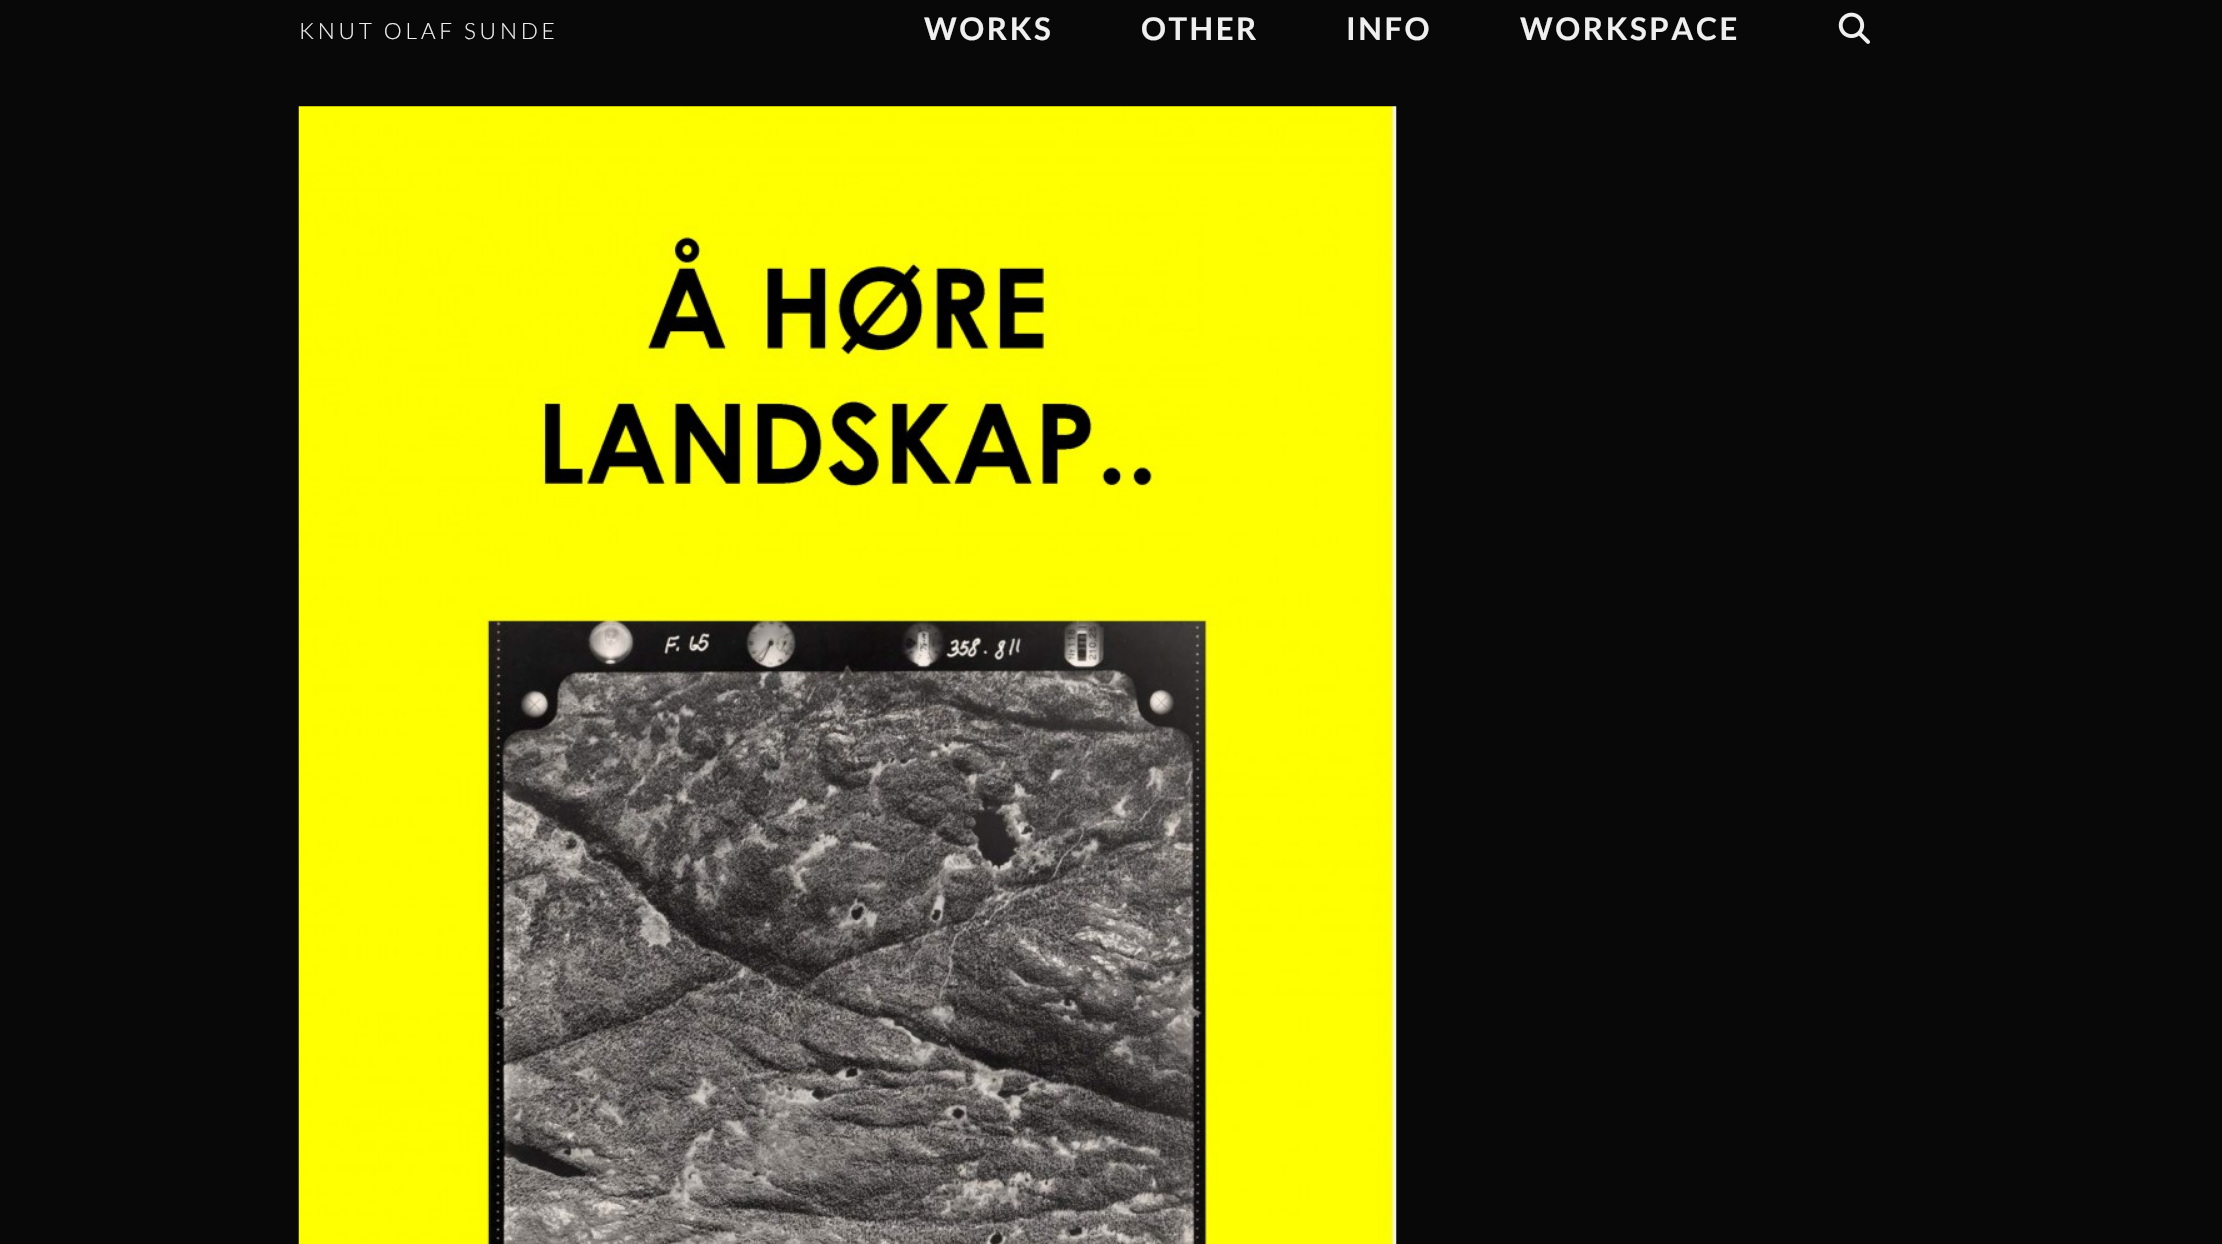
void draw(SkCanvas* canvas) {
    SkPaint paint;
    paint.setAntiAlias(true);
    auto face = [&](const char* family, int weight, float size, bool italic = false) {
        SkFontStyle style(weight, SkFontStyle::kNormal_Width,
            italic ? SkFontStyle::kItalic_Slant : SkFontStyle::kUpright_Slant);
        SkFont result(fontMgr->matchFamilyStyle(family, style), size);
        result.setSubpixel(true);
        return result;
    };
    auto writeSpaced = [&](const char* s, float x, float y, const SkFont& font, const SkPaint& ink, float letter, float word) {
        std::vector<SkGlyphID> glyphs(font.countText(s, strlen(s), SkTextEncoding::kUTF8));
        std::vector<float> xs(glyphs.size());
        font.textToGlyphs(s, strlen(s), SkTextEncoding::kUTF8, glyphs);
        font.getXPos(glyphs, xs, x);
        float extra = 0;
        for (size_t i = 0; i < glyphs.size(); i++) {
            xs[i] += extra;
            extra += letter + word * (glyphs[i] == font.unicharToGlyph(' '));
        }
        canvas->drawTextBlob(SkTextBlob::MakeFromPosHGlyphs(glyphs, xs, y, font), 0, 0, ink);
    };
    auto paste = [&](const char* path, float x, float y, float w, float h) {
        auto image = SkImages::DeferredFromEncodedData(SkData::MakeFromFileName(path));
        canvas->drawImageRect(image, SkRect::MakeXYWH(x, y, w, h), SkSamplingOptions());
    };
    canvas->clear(SkColorSetRGB(8, 8, 8));
    auto kFont1 = face("Lato", 300, 22.5f);
    paint.setColor(SkColorSetRGB(239, 239, 239));
    writeSpaced("KNUT OLAF SUNDE", 299, 39, kFont1, paint, 3.8f, 0);
    auto kFont2 = face("Lato", 700, 31.25f);
    writeSpaced("WORKS", 924, 40, kFont2, paint, 2.5f, 0);
    writeSpaced("OTHER", 1141, 40, kFont2, paint, 2.5f, 0);
    writeSpaced("INFO", 1346, 40, kFont2, paint, 2.5f, 0);
    writeSpaced("WORKSPACE", 1520, 40, kFont2, paint, 2.5f, 0);
    paste("pic1.png", 1838, 12, 32, 32);
    paste("pic2.png", 298, 106, 1099, 1138);
}
